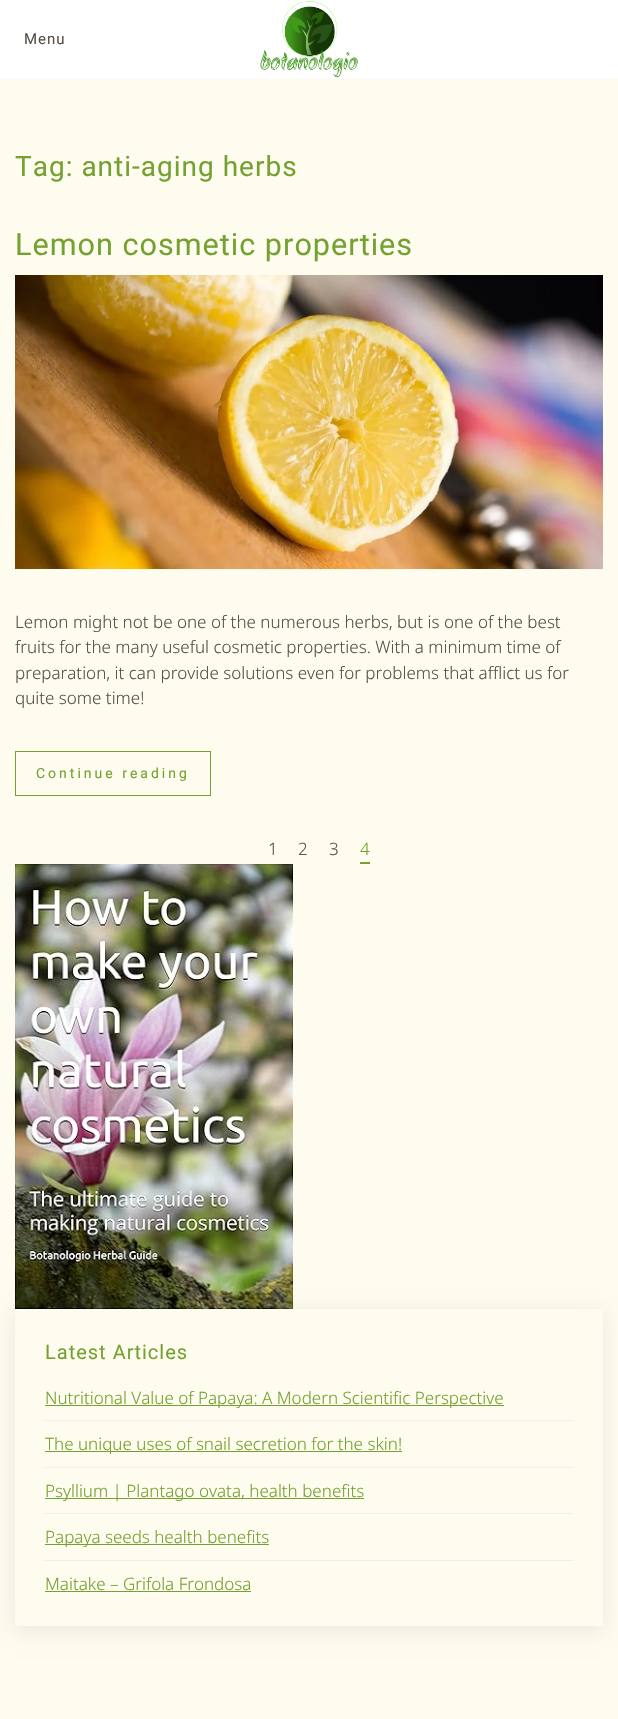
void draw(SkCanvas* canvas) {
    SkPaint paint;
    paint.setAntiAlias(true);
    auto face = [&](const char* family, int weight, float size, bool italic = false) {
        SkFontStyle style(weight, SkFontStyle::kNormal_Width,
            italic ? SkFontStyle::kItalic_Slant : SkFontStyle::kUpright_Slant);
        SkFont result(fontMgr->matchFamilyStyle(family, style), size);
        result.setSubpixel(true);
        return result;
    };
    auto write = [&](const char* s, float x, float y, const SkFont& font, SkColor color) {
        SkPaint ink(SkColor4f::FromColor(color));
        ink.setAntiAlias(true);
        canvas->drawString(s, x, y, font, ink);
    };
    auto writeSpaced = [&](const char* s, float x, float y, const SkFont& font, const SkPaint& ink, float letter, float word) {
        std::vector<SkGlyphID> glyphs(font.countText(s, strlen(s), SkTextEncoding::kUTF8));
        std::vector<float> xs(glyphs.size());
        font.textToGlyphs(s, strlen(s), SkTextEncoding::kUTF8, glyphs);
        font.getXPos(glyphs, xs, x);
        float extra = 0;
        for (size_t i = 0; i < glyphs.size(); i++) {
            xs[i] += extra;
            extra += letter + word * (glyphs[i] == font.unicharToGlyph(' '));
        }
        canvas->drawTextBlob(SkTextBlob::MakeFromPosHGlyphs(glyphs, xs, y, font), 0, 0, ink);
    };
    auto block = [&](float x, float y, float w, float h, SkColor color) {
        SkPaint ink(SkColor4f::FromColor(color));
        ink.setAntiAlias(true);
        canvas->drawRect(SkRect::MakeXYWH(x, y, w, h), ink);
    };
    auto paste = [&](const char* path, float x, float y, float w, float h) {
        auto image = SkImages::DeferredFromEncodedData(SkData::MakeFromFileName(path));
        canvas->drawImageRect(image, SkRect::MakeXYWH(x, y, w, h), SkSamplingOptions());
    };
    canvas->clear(SkColorSetRGB(254, 251, 239));
    block(0, 0, 618, 79, SK_ColorWHITE);
    auto kFont1 = face("Roboto", 400, 15);
    paint.setColor(SkColorSetRGB(89, 81, 73));
    writeSpaced("Menu", 24, 44, kFont1, paint, 1, 0);
    paste("pic1.png", 260, 0, 98, 78);
    auto kFont2 = face("Roboto", 400, 28);
    paint.setColor(SkColorSetRGB(116, 162, 48));
    writeSpaced("Tag: anti-aging herbs", 15, 176, kFont2, paint, 1, 0);
    auto kFont3 = face("Roboto", 400, 30.6f);
    writeSpaced("Lemon cosmetic properties", 15, 255, kFont3, paint, 1, 0);
    paste("pic2.png", 15, 275, 588, 294);
    auto kFont4 = face("Noto Sans", 300, 17);
    write("Lemon might not be one of the numerous herbs, but is one of the best", 15, 628, kFont4, SkColorSetRGB(89, 81, 73));
    write("fruits for the many useful cosmetic properties. With a minimum time of", 15, 653, kFont4, SkColorSetRGB(89, 81, 73));
    write("preparation, it can provide solutions even for problems that afflict us for", 15, 679, kFont4, SkColorSetRGB(89, 81, 73));
    write("quite some time!", 15, 704, kFont4, SkColorSetRGB(89, 81, 73));
    paint.setStyle(SkPaint::kStroke_Style);
    paint.setStrokeWidth(1);
    canvas->drawRect(SkRect::MakeXYWH(15.5f, 751.5f, 195, 44), paint);
    auto kFont5 = face("Roboto", 400, 14);
    paint.setStyle(SkPaint::kFill_Style);
    writeSpaced("Continue reading", 36, 778, kFont5, paint, 3, 0);
    paint.setColor(SkColorSetRGB(89, 81, 73));
    writeSpaced("1", 268, 855, kFont4, paint, 1, 0);
    writeSpaced("2", 298, 855, kFont4, paint, 1, 0);
    writeSpaced("3", 329, 855, kFont4, paint, 1, 0);
    block(360, 862, 10, 2, SkColorSetRGB(116, 162, 48));
    paint.setColor(SkColorSetRGB(116, 162, 48));
    writeSpaced("4", 360, 855, kFont4, paint, 1, 0);
    paste("pic3.png", 15, 864, 278, 445);
    canvas->save();
    canvas->clipPath(SkPathBuilder(SkPathFillType::kEvenOdd).moveTo(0, 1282).lineTo(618, 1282).lineTo(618, 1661).lineTo(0, 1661).close().moveTo(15, 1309).lineTo(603, 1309).lineTo(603, 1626).lineTo(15, 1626).close().detach(), true);
    paint.setColor(SkColorSetARGB(20, 0, 0, 0));
    paint.setMaskFilter(SkMaskFilter::MakeBlur(kNormal_SkBlurStyle, 10));
    canvas->drawRect(SkRect::MakeXYWH(15, 1313, 588, 317), paint);
    paint.setMaskFilter(nullptr);
    canvas->restore();
    auto kFont6 = face("Roboto", 400, 20);
    paint.setColor(SkColorSetRGB(116, 162, 48));
    writeSpaced("Latest Articles", 45, 1359, kFont6, paint, 1, 0);
    block(45, 1405, 459, 1, SkColorSetRGB(116, 162, 48));
    write("Nutritional Value of Papaya: A Modern Scientific Perspective", 45, 1404, kFont4, SkColorSetRGB(116, 162, 48));
    block(45, 1420, 528, 1, SkColorSetRGB(240, 237, 232));
    block(45, 1451, 357, 1, SkColorSetRGB(116, 162, 48));
    write("The unique uses of snail secretion for the skin!", 45, 1450, kFont4, SkColorSetRGB(116, 162, 48));
    block(45, 1467, 528, 1, SkColorSetRGB(240, 237, 232));
    block(45, 1498, 319, 1, SkColorSetRGB(116, 162, 48));
    write("Psyllium | Plantago ovata, health benefits", 45, 1497, kFont4, SkColorSetRGB(116, 162, 48));
    block(45, 1513, 528, 1, SkColorSetRGB(240, 237, 232));
    block(45, 1544, 224, 1, SkColorSetRGB(116, 162, 48));
    write("Papaya seeds health benefits", 45, 1543, kFont4, SkColorSetRGB(116, 162, 48));
    block(45, 1560, 528, 1, SkColorSetRGB(240, 237, 232));
    write("Maitake – Grifola Frondosa", 45, 1590, kFont4, SkColorSetRGB(116, 162, 48));
    block(45, 1591, 206, 1, SkColorSetRGB(116, 162, 48));
}
